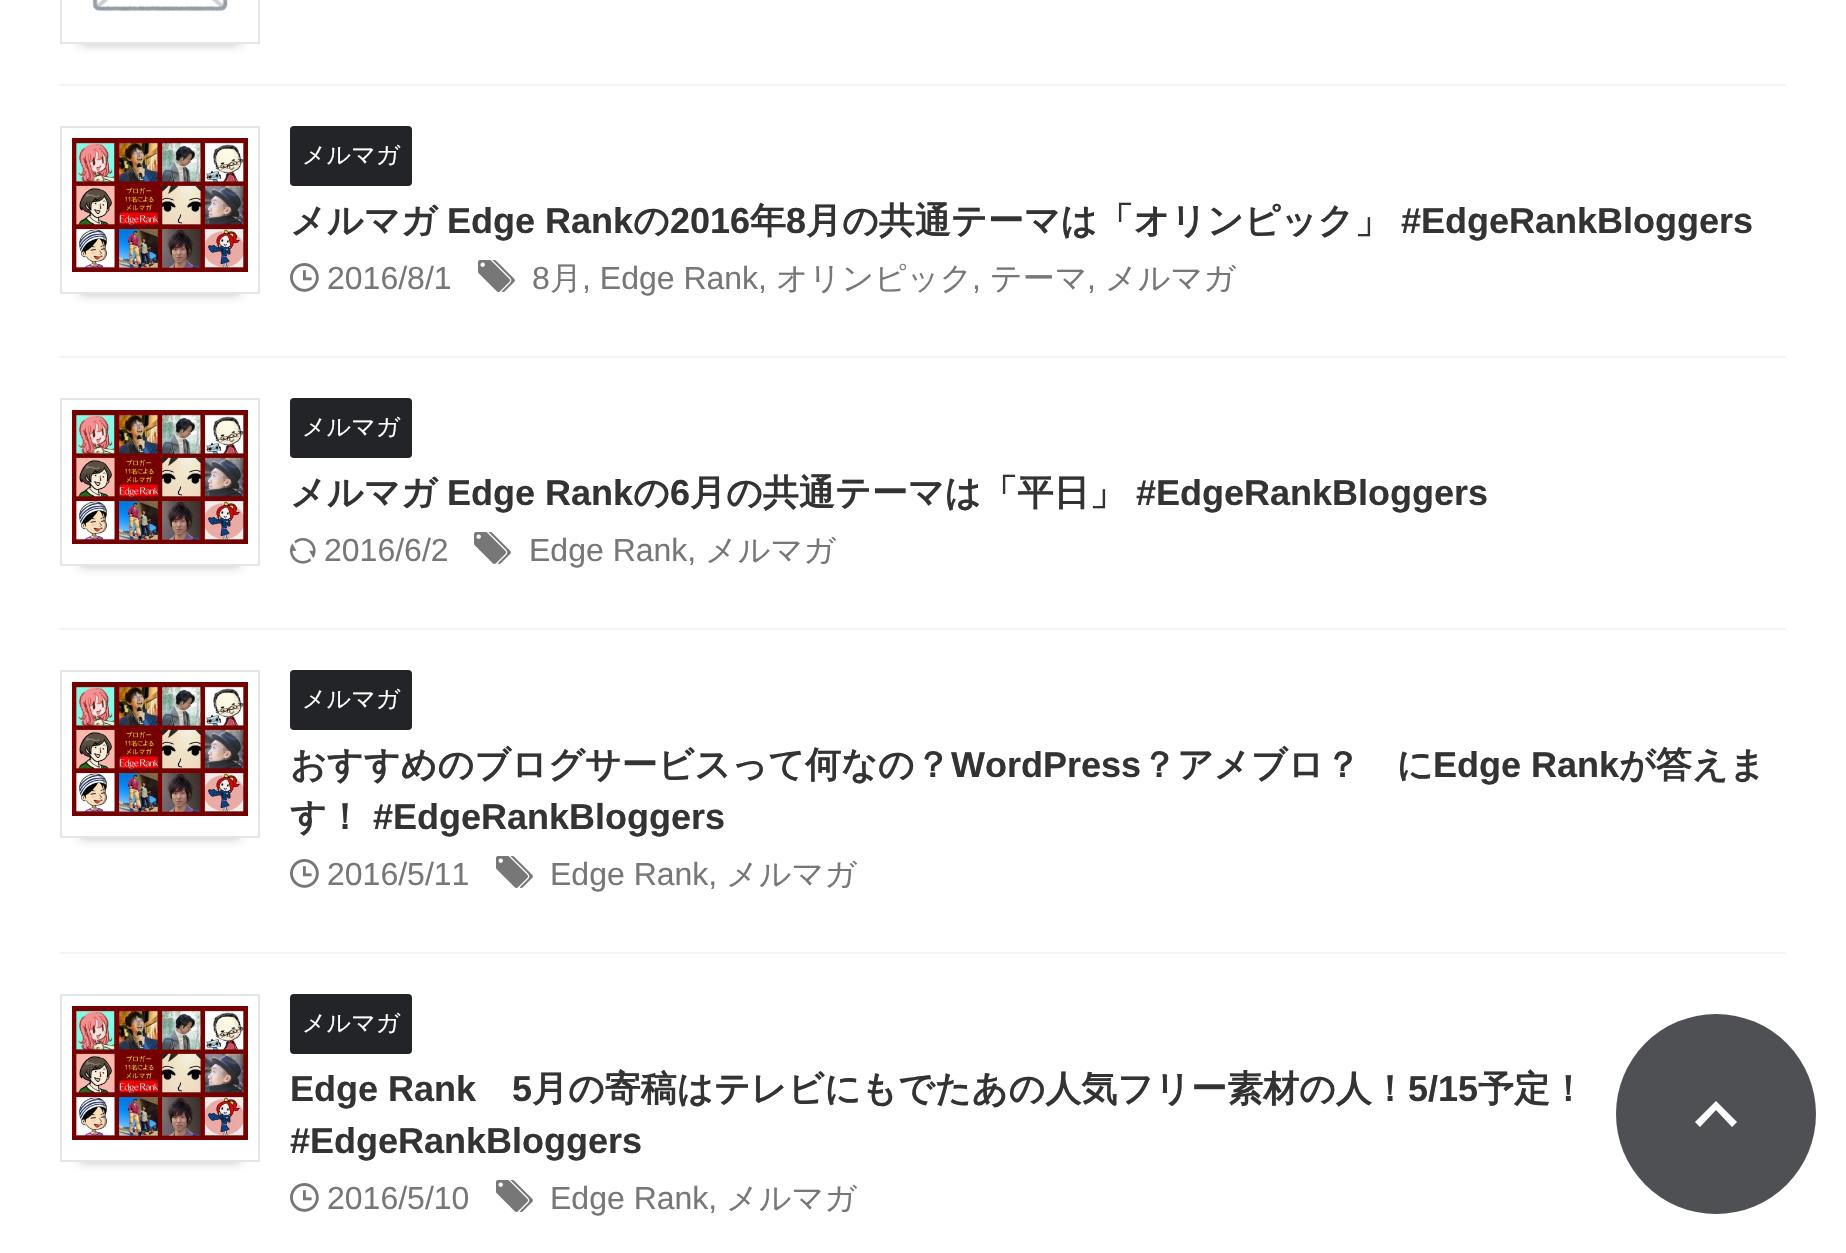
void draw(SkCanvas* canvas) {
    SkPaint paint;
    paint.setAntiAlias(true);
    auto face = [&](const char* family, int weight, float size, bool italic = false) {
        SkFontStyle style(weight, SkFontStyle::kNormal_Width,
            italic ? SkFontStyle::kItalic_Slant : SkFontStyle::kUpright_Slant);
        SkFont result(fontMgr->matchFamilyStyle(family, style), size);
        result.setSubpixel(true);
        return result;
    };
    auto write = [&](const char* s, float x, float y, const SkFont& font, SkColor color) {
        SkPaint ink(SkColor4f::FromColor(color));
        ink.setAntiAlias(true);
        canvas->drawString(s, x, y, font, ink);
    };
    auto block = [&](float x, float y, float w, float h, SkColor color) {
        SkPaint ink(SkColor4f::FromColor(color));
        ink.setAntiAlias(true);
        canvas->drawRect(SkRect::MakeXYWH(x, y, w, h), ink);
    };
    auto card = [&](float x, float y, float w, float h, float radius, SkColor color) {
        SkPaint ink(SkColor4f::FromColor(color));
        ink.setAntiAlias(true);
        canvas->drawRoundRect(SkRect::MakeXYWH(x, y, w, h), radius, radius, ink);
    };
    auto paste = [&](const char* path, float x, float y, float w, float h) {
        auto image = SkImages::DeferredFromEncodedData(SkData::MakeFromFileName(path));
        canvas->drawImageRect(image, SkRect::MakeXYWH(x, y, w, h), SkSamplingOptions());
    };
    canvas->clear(SK_ColorWHITE);
    block(60, 84, 1726, 2, SkColorSetRGB(243, 243, 243));
    canvas->save();
    canvas->clipRect(SkRect::MakeXYWH(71, 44, 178, 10));
    paint.setColor(SkColorSetRGB(190, 190, 190));
    paint.setMaskFilter(SkMaskFilter::MakeBlur(kNormal_SkBlurStyle, 5));
    canvas->drawRect(SkRect::MakeXYWH(80, -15, 160, 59), paint);
    paint.setMaskFilter(nullptr);
    canvas->restore();
    paint.setStyle(SkPaint::kStroke_Style);
    paint.setStrokeWidth(2);
    paint.setColor(SkColorSetRGB(230, 230, 230));
    canvas->drawRect(SkRect::MakeXYWH(61, -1, 198, 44), paint);
    paste("pic1.png", 92, 0, 136, 12);
    block(60, 356, 1726, 2, SkColorSetRGB(243, 243, 243));
    canvas->save();
    canvas->clipRect(SkRect::MakeXYWH(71, 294, 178, 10));
    paint.setStyle(SkPaint::kFill_Style);
    paint.setColor(SkColorSetRGB(190, 190, 190));
    paint.setMaskFilter(SkMaskFilter::MakeBlur(kNormal_SkBlurStyle, 5));
    canvas->drawRect(SkRect::MakeXYWH(80, 166, 160, 128), paint);
    paint.setMaskFilter(nullptr);
    canvas->restore();
    paint.setStyle(SkPaint::kStroke_Style);
    paint.setColor(SkColorSetRGB(230, 230, 230));
    canvas->drawRect(SkRect::MakeXYWH(61, 127, 198, 166), paint);
    paste("pic2.png", 72, 138, 176, 134);
    card(290, 126, 122, 60, 4, SkColorSetRGB(34, 36, 40));
    auto kFont1 = face("WenQuanYi Zen Hei", 500, 24);
    write("メルマガ", 302, 163, kFont1, SK_ColorWHITE);
    auto kFont2 = face("WenQuanYi Zen Hei", 700, 36);
    write("メルマガ", 290, 233, kFont2, SkColorSetRGB(51, 51, 51));
    auto kFont3 = face("Liberation Sans", 700, 36);
    write("Edge Rank", 447, 233, kFont3, SkColorSetRGB(51, 51, 51));
    write("の", 633, 233, kFont2, SkColorSetRGB(51, 51, 51));
    write("2016", 670, 233, kFont3, SkColorSetRGB(51, 51, 51));
    write("年", 750, 233, kFont2, SkColorSetRGB(51, 51, 51));
    write("8", 786, 233, kFont3, SkColorSetRGB(51, 51, 51));
    write("月の共通テーマは「オリンピック」", 806, 233, kFont2, SkColorSetRGB(51, 51, 51));
    write("#EdgeRankBloggers", 1401, 233, kFont3, SkColorSetRGB(51, 51, 51));
    paste("pic3.png", 290, 263, 29, 29);
    auto kFont4 = face("Liberation Sans", 400, 32);
    write("2016/8/1", 327, 289, kFont4, SkColorSetRGB(119, 119, 119));
    paste("pic4.png", 478, 260, 37, 32);
    write("8", 532, 289, kFont4, SkColorSetRGB(119, 119, 119));
    auto kFont5 = face("WenQuanYi Zen Hei", 500, 32);
    write("月", 550, 289, kFont5, SkColorSetRGB(119, 119, 119));
    write(", Edge Rank,", 582, 289, kFont4, SkColorSetRGB(119, 119, 119));
    write("オリンピック", 776, 289, kFont5, SkColorSetRGB(119, 119, 119));
    write(",", 972, 289, kFont4, SkColorSetRGB(119, 119, 119));
    write("テーマ", 990, 289, kFont5, SkColorSetRGB(119, 119, 119));
    write(",", 1087, 289, kFont4, SkColorSetRGB(119, 119, 119));
    write("メルマガ", 1105, 289, kFont5, SkColorSetRGB(119, 119, 119));
    block(60, 628, 1726, 2, SkColorSetRGB(243, 243, 243));
    canvas->save();
    canvas->clipRect(SkRect::MakeXYWH(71, 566, 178, 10));
    paint.setStyle(SkPaint::kFill_Style);
    paint.setColor(SkColorSetRGB(190, 190, 190));
    paint.setMaskFilter(SkMaskFilter::MakeBlur(kNormal_SkBlurStyle, 5));
    canvas->drawRect(SkRect::MakeXYWH(80, 438, 160, 128), paint);
    paint.setMaskFilter(nullptr);
    canvas->restore();
    paint.setStyle(SkPaint::kStroke_Style);
    paint.setColor(SkColorSetRGB(230, 230, 230));
    canvas->drawRect(SkRect::MakeXYWH(61, 399, 198, 166), paint);
    paste("pic5.png", 72, 410, 176, 134);
    card(290, 398, 122, 60, 4, SkColorSetRGB(34, 36, 40));
    write("メルマガ", 302, 435, kFont1, SK_ColorWHITE);
    write("メルマガ", 290, 505, kFont2, SkColorSetRGB(51, 51, 51));
    write("Edge Rank", 447, 505, kFont3, SkColorSetRGB(51, 51, 51));
    write("の", 633, 505, kFont2, SkColorSetRGB(51, 51, 51));
    write("6", 670, 505, kFont3, SkColorSetRGB(51, 51, 51));
    write("月の共通テーマは「平日」", 690, 505, kFont2, SkColorSetRGB(51, 51, 51));
    write("#EdgeRankBloggers", 1136, 505, kFont3, SkColorSetRGB(51, 51, 51));
    paste("pic6.png", 290, 538, 26, 26);
    write("2016/6/2", 324, 561, kFont4, SkColorSetRGB(119, 119, 119));
    paste("pic4.png", 474, 532, 37, 32);
    write("Edge Rank,", 529, 561, kFont4, SkColorSetRGB(119, 119, 119));
    write("メルマガ", 705, 561, kFont5, SkColorSetRGB(119, 119, 119));
    block(60, 952, 1726, 2, SkColorSetRGB(243, 243, 243));
    canvas->save();
    canvas->clipRect(SkRect::MakeXYWH(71, 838, 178, 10));
    paint.setStyle(SkPaint::kFill_Style);
    paint.setColor(SkColorSetRGB(190, 190, 190));
    paint.setMaskFilter(SkMaskFilter::MakeBlur(kNormal_SkBlurStyle, 5));
    canvas->drawRect(SkRect::MakeXYWH(80, 710, 160, 128), paint);
    paint.setMaskFilter(nullptr);
    canvas->restore();
    paint.setStyle(SkPaint::kStroke_Style);
    paint.setColor(SkColorSetRGB(230, 230, 230));
    canvas->drawRect(SkRect::MakeXYWH(61, 671, 198, 166), paint);
    paste("pic7.png", 72, 682, 176, 134);
    card(290, 670, 122, 60, 4, SkColorSetRGB(34, 36, 40));
    write("メルマガ", 302, 707, kFont1, SK_ColorWHITE);
    write("おすすめのブログサービスって何なの？", 290, 777, kFont2, SkColorSetRGB(51, 51, 51));
    write("WordPress", 951, 777, kFont3, SkColorSetRGB(51, 51, 51));
    write("？アメブロ？　に", 1141, 777, kFont2, SkColorSetRGB(51, 51, 51));
    write("Edge Rank", 1433, 777, kFont3, SkColorSetRGB(51, 51, 51));
    write("が答えま", 1619, 777, kFont2, SkColorSetRGB(51, 51, 51));
    write("す！", 290, 829, kFont2, SkColorSetRGB(51, 51, 51));
    write("#EdgeRankBloggers", 373, 829, kFont3, SkColorSetRGB(51, 51, 51));
    paste("pic3.png", 290, 859, 29, 29);
    write("2016/5/11", 327, 885, kFont4, SkColorSetRGB(119, 119, 119));
    paste("pic4.png", 496, 856, 37, 32);
    write("Edge Rank,", 550, 885, kFont4, SkColorSetRGB(119, 119, 119));
    write("メルマガ", 726, 885, kFont5, SkColorSetRGB(119, 119, 119));
    canvas->save();
    canvas->clipRect(SkRect::MakeXYWH(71, 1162, 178, 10));
    paint.setStyle(SkPaint::kFill_Style);
    paint.setColor(SkColorSetRGB(190, 190, 190));
    paint.setMaskFilter(SkMaskFilter::MakeBlur(kNormal_SkBlurStyle, 5));
    canvas->drawRect(SkRect::MakeXYWH(80, 1034, 160, 128), paint);
    paint.setMaskFilter(nullptr);
    canvas->restore();
    paint.setStyle(SkPaint::kStroke_Style);
    paint.setColor(SkColorSetRGB(230, 230, 230));
    canvas->drawRect(SkRect::MakeXYWH(61, 995, 198, 166), paint);
    paste("pic8.png", 72, 1006, 176, 134);
    card(290, 994, 122, 60, 4, SkColorSetRGB(34, 36, 40));
    write("メルマガ", 302, 1031, kFont1, SK_ColorWHITE);
    write("Edge Rank", 290, 1101, kFont3, SkColorSetRGB(51, 51, 51));
    write("5", 512, 1101, kFont3, SkColorSetRGB(51, 51, 51));
    write("月の寄稿はテレビにもでたあの人気フリー素材の人！", 532, 1101, kFont2, SkColorSetRGB(51, 51, 51));
    write("5/15", 1408, 1101, kFont3, SkColorSetRGB(51, 51, 51));
    write("予定！", 1478, 1101, kFont2, SkColorSetRGB(51, 51, 51));
    write("#EdgeRankBloggers", 290, 1153, kFont3, SkColorSetRGB(51, 51, 51));
    paste("pic3.png", 290, 1183, 29, 29);
    write("2016/5/10", 327, 1209, kFont4, SkColorSetRGB(119, 119, 119));
    paste("pic4.png", 496, 1180, 37, 32);
    write("Edge Rank,", 550, 1209, kFont4, SkColorSetRGB(119, 119, 119));
    write("メルマガ", 726, 1209, kFont5, SkColorSetRGB(119, 119, 119));
    paint.setStyle(SkPaint::kFill_Style);
    paint.setColor(SkColorSetRGB(78, 80, 83));
    canvas->drawCircle(1716, 1114, 100, paint);
    paint.setColor(SK_ColorWHITE);
    canvas->drawPath(SkPathBuilder().moveTo(1716, 1110).lineTo(1700, 1127).lineTo(1695, 1122).lineTo(1716, 1101).lineTo(1737, 1122).lineTo(1732, 1127).close().detach(), paint);
}
